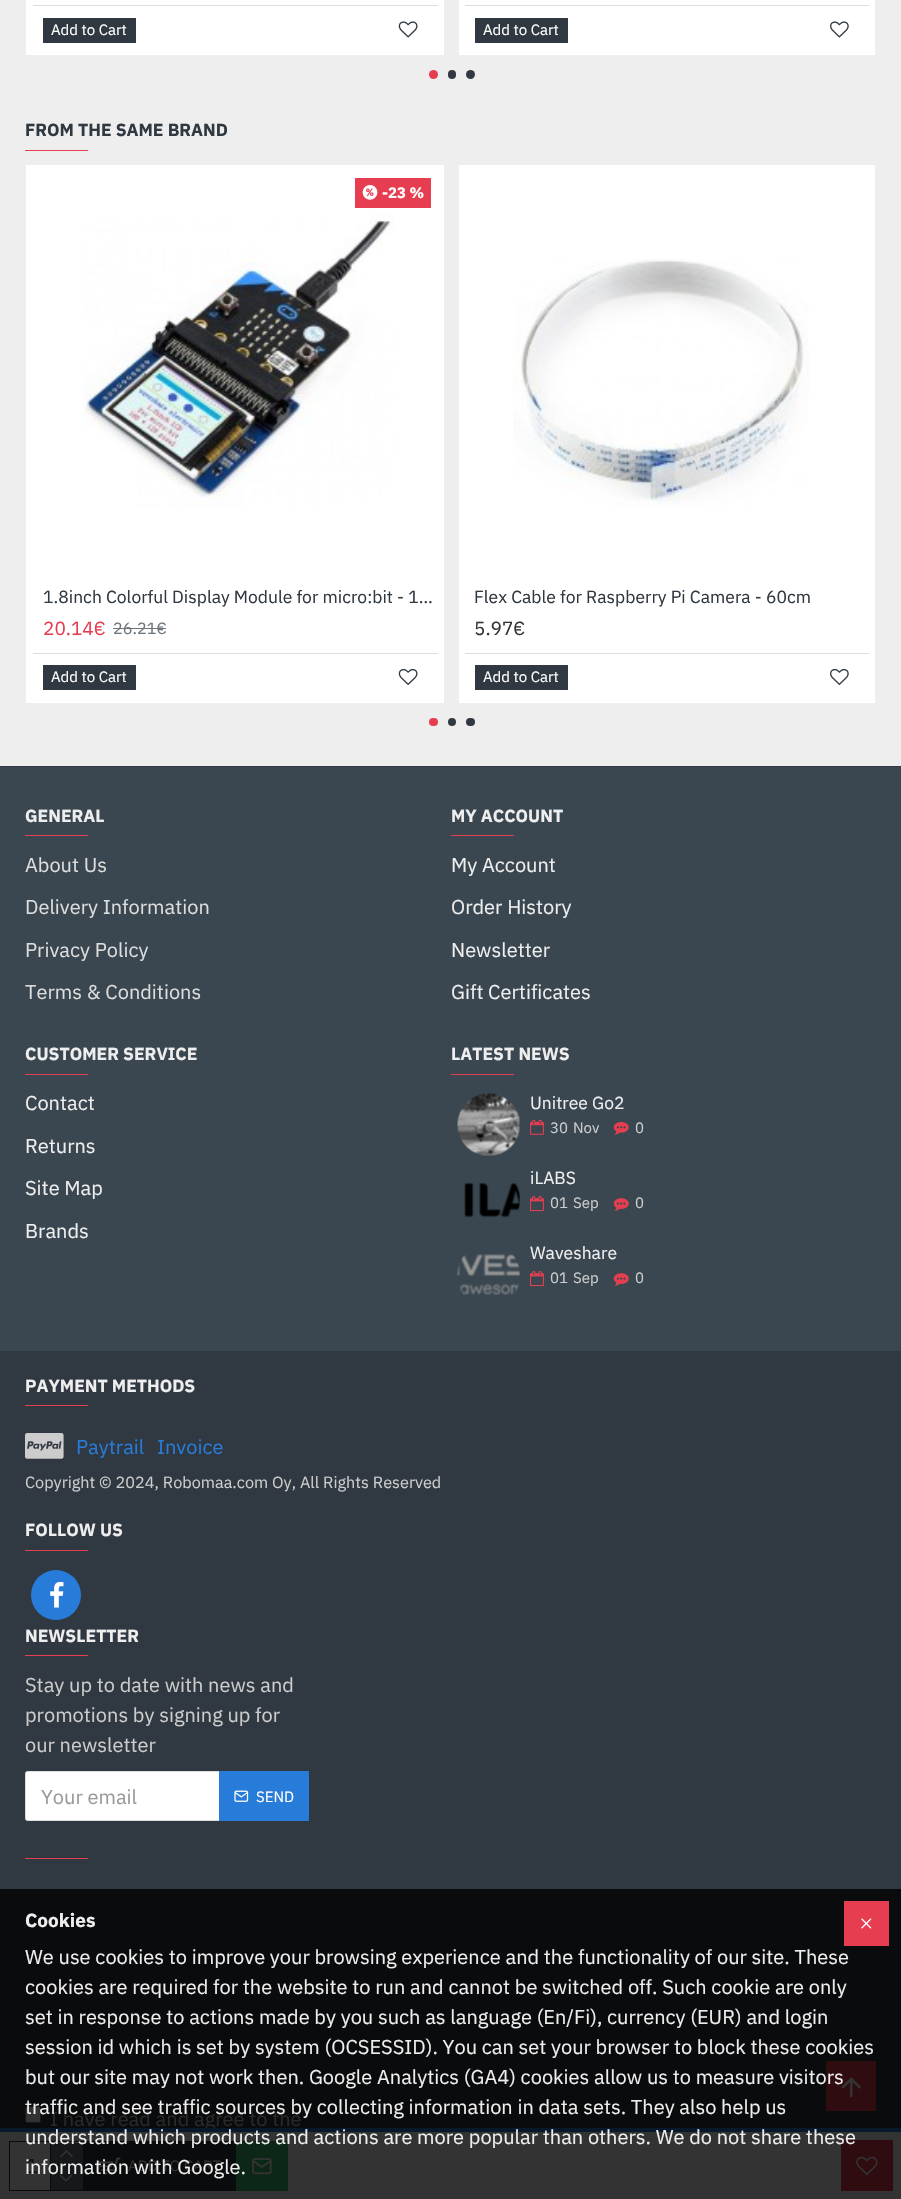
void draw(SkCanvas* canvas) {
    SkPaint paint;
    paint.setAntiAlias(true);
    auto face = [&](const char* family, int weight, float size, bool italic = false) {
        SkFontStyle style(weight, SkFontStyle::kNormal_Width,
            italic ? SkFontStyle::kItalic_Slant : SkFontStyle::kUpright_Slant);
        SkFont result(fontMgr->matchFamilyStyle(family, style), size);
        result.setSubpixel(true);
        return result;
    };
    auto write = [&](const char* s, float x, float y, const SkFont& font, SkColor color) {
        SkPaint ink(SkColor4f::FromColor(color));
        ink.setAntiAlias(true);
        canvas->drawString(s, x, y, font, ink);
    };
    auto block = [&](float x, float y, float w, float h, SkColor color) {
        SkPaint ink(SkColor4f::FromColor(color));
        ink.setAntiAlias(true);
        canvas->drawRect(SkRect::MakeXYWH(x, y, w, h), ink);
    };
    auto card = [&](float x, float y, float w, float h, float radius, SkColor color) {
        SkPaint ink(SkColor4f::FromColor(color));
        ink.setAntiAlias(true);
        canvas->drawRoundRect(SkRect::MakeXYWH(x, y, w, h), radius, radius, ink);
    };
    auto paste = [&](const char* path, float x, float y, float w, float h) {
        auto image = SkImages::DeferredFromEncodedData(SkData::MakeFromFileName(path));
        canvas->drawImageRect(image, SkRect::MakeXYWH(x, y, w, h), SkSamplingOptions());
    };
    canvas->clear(SkColorSetRGB(238, 238, 238));
    block(26, 0, 418, 55, SK_ColorWHITE);
    block(33, 5, 405, 1, SkColorSetRGB(221, 221, 221));
    block(43, 18, 93, 25, SkColorSetRGB(48, 56, 65));
    auto kFont1 = face("IBM Plex Sans", 400, 15);
    write("Add to Cart", 51, 35, kFont1, SK_ColorWHITE);
    paste("pic1.png", 398, 21, 20, 17);
    block(459, 0, 416, 55, SK_ColorWHITE);
    block(465, 5, 404, 1, SkColorSetRGB(221, 221, 221));
    block(475, 18, 93, 25, SkColorSetRGB(48, 56, 65));
    write("Add to Cart", 483, 35, kFont1, SK_ColorWHITE);
    paste("pic2.png", 830, 21, 19, 17);
    paint.setColor(SkColorSetRGB(231, 61, 80));
    canvas->drawCircle(433.5f, 74.5f, 4.5f, paint);
    card(448, 70, 8, 9, 4, SkColorSetRGB(48, 56, 65));
    paint.setColor(SkColorSetRGB(48, 56, 65));
    canvas->drawCircle(470.5f, 74.5f, 4.5f, paint);
    auto kFont2 = face("IBM Plex Sans", 700, 17.5f);
    write("FROM THE SAME BRAND", 25, 136, kFont2, SkColorSetRGB(48, 56, 65));
    block(25, 150, 63, 1, SkColorSetRGB(231, 61, 80));
    block(26, 165, 418, 538, SK_ColorWHITE);
    block(355, 178, 76, 30, SkColorSetRGB(231, 61, 80));
    paste("pic3.png", 362, 185, 16, 15);
    auto kFont3 = face("IBM Plex Sans", 700, 15);
    write("-23 %", 382, 198, kFont3, SK_ColorWHITE);
    paste("pic4.png", 83, 214, 312, 294);
    auto kFont4 = face("IBM Plex Sans", 400, 17.5f);
    write("1.8inch Colorful Display Module for micro:bit - 1…", 43, 603, kFont4, SkColorSetRGB(48, 56, 65));
    auto kFont5 = face("IBM Plex Sans", 400, 19);
    write("20.14€", 43, 635, kFont5, SkColorSetRGB(231, 61, 80));
    auto kFont6 = face("IBM Plex Sans", 400, 16.25f);
    write("26.21€", 113, 634, kFont6, SkColorSetRGB(109, 118, 125));
    block(113, 628, 53, 1, SkColorSetRGB(109, 118, 125));
    block(33, 653, 405, 1, SkColorSetRGB(221, 221, 221));
    block(43, 665, 93, 25, SkColorSetRGB(48, 56, 65));
    write("Add to Cart", 51, 682, kFont1, SK_ColorWHITE);
    paste("pic5.png", 398, 668, 20, 17);
    block(459, 165, 416, 538, SK_ColorWHITE);
    paste("pic6.png", 513, 259, 296, 250);
    write("Flex Cable for Raspberry Pi Camera - 60cm", 474, 603, kFont4, SkColorSetRGB(48, 56, 65));
    write("5.97€", 474, 635, kFont5, SkColorSetRGB(51, 51, 51));
    block(465, 653, 404, 1, SkColorSetRGB(221, 221, 221));
    block(475, 665, 93, 25, SkColorSetRGB(48, 56, 65));
    write("Add to Cart", 483, 682, kFont1, SK_ColorWHITE);
    paste("pic7.png", 830, 668, 19, 17);
    card(429, 718, 9, 8, 4, SkColorSetRGB(231, 61, 80));
    canvas->drawCircle(452, 722, 4, paint);
    card(466, 718, 9, 8, 4, SkColorSetRGB(48, 56, 65));
    block(0, 767, 901, 584, SkColorSetRGB(58, 71, 80));
    block(0, 766, 901, 1, SkColorSetRGB(48, 56, 65));
    write("GENERAL", 25, 822, kFont2, SkColorSetRGB(238, 238, 238));
    block(25, 835, 63, 1, SkColorSetRGB(231, 61, 80));
    auto kFont7 = face("IBM Plex Sans", 400, 20);
    write("About Us", 25, 872, kFont7, SkColorSetRGB(221, 221, 221));
    write("Delivery Information", 25, 914, kFont7, SkColorSetRGB(221, 221, 221));
    write("Privacy Policy", 25, 957, kFont7, SkColorSetRGB(221, 221, 221));
    write("Terms & Conditions", 25, 999, kFont7, SkColorSetRGB(221, 221, 221));
    write("MY ACCOUNT", 451, 822, kFont2, SkColorSetRGB(238, 238, 238));
    block(451, 835, 63, 1, SkColorSetRGB(231, 61, 80));
    write("My Account", 451, 872, kFont7, SkColorSetRGB(238, 238, 238));
    write("Order History", 451, 914, kFont7, SkColorSetRGB(238, 238, 238));
    write("Newsletter", 451, 957, kFont7, SkColorSetRGB(238, 238, 238));
    write("Gift Certificates", 451, 999, kFont7, SkColorSetRGB(238, 238, 238));
    write("CUSTOMER SERVICE", 25, 1060, kFont2, SkColorSetRGB(238, 238, 238));
    block(25, 1074, 63, 1, SkColorSetRGB(231, 61, 80));
    write("Contact", 25, 1110, kFont7, SkColorSetRGB(238, 238, 238));
    write("Returns", 25, 1153, kFont7, SkColorSetRGB(238, 238, 238));
    write("Site Map", 25, 1195, kFont7, SkColorSetRGB(238, 238, 238));
    write("Brands", 25, 1238, kFont7, SkColorSetRGB(238, 238, 238));
    write("LATEST NEWS", 451, 1060, kFont2, SkColorSetRGB(238, 238, 238));
    block(451, 1074, 63, 1, SkColorSetRGB(231, 61, 80));
    paste("pic8.png", 457, 1093, 63, 63);
    write("Unitree Go2", 530, 1109, kFont4, SkColorSetRGB(238, 238, 238));
    paste("pic9.png", 530, 1119, 14, 16);
    write("30", 550, 1133, kFont1, SkColorSetRGB(204, 204, 204));
    write("Nov", 573, 1133, kFont1, SkColorSetRGB(204, 204, 204));
    paste("pic10.png", 613, 1122, 16, 13);
    write("0", 635, 1133, kFont1, SkColorSetRGB(204, 204, 204));
    paste("pic11.png", 464, 1182, 56, 36);
    write("iLABS", 530, 1184, kFont4, SkColorSetRGB(238, 238, 238));
    paste("pic12.png", 530, 1196, 14, 16);
    write("01", 550, 1208, kFont1, SkColorSetRGB(204, 204, 204));
    write("Sep", 573, 1208, kFont1, SkColorSetRGB(204, 204, 204));
    paste("pic13.png", 613, 1198, 16, 13);
    write("0", 635, 1208, kFont1, SkColorSetRGB(204, 204, 204));
    paste("pic14.png", 457, 1254, 64, 41);
    write("Waveshare", 530, 1259, kFont4, SkColorSetRGB(238, 238, 238));
    paste("pic12.png", 530, 1271, 14, 16);
    write("01", 550, 1283, kFont1, SkColorSetRGB(204, 204, 204));
    write("Sep", 573, 1283, kFont1, SkColorSetRGB(204, 204, 204));
    paste("pic13.png", 613, 1273, 16, 13);
    write("0", 635, 1283, kFont1, SkColorSetRGB(204, 204, 204));
    block(0, 1351, 901, 538, SkColorSetRGB(48, 56, 65));
    block(0, 1889, 901, 239, SkColorSetRGB(10, 11, 13));
    write("PAYMENT METHODS", 25, 1392, kFont2, SkColorSetRGB(238, 238, 238));
    block(25, 1405, 63, 1, SkColorSetRGB(231, 61, 80));
    paste("pic15.png", 25, 1433, 39, 26);
    write("Paytrail", 76, 1454, kFont7, SkColorSetRGB(39, 124, 217));
    write("Invoice", 157, 1454, kFont7, SkColorSetRGB(39, 124, 217));
    write("Copyright © 2024, Robomaa.com Oy, All Rights Reserved", 25, 1488, kFont6, SkColorSetRGB(204, 204, 204));
    write("FOLLOW US", 25, 1536, kFont2, SkColorSetRGB(238, 238, 238));
    block(25, 1550, 63, 1, SkColorSetRGB(231, 61, 80));
    paint.setColor(SkColorSetRGB(39, 124, 217));
    canvas->drawCircle(56, 1595, 25, paint);
    paste("pic16.png", 50, 1582, 14, 26);
    write("NEWSLETTER", 25, 1642, kFont2, SkColorSetRGB(238, 238, 238));
    block(25, 1655, 63, 1, SkColorSetRGB(231, 61, 80));
    write("Stay up to date with news and", 25, 1692, kFont7, SkColorSetRGB(204, 204, 204));
    write("promotions by signing up for", 25, 1722, kFont7, SkColorSetRGB(204, 204, 204));
    write("our newsletter", 25, 1752, kFont7, SkColorSetRGB(204, 204, 204));
    paint.setColor(SK_ColorWHITE);
    canvas->drawRoundRect(SkRect::MakeXYWH(25.5f, 1771.5f, 283, 49), 2, 2, paint);
    paint.setStyle(SkPaint::kStroke_Style);
    paint.setStrokeWidth(1);
    paint.setColor(SkColorSetRGB(221, 221, 221));
    canvas->drawRoundRect(SkRect::MakeXYWH(25.5f, 1771.5f, 283, 49), 2, 2, paint);
    write("Your email", 41, 1804, kFont7, SkColorSetRGB(153, 153, 153));
    block(219, 1771, 90, 50, SkColorSetRGB(39, 124, 217));
    paste("pic17.png", 234, 1790, 15, 12);
    write("SEND", 256, 1802, kFont1, SK_ColorWHITE);
    block(25, 1858, 63, 1, SkColorSetRGB(231, 61, 80));
    paint.setStyle(SkPaint::kFill_Style);
    paint.setColor(SkColorSetRGB(51, 51, 51));
    canvas->drawRoundRect(SkRect::MakeXYWH(25.5f, 2106.5f, 15, 16), 2, 2, paint);
    paint.setStyle(SkPaint::kStroke_Style);
    paint.setColor(SkColorSetRGB(24, 24, 24));
    canvas->drawRoundRect(SkRect::MakeXYWH(25.5f, 2106.5f, 15, 16), 2, 2, paint);
    write("I have read and agree to the", 50, 2126, kFont7, SkColorSetRGB(41, 41, 41));
    block(0, 2132, 901, 67, SkColorSetRGB(51, 51, 51));
    block(0, 2128, 901, 4, SkColorSetRGB(8, 25, 43));
    paint.setColor(SkColorSetRGB(10, 11, 13));
    canvas->drawRect(SkRect::MakeXYWH(9.5f, 2141.5f, 74, 49), paint);
    write("1", 26, 2173, kFont7, SkColorSetRGB(17, 17, 17));
    block(50, 2143, 1, 47, SkColorSetRGB(10, 11, 13));
    block(51, 2143, 32, 22, SkColorSetRGB(22, 24, 25));
    block(51, 2165, 32, 1, SkColorSetRGB(10, 11, 13));
    paste("pic18.png", 60, 2150, 13, 8);
    block(51, 2166, 32, 24, SkColorSetRGB(22, 24, 25));
    paste("pic19.png", 59, 2174, 14, 8);
    block(84, 2141, 152, 50, SkColorSetRGB(10, 11, 13));
    paste("pic20.png", 97, 2157, 24, 18);
    write("ADD TO CART", 128, 2171, kFont1, SkColorSetRGB(51, 51, 51));
    block(236, 2141, 52, 50, SkColorSetRGB(12, 39, 23));
    paste("pic21.png", 252, 2158, 20, 17);
    block(841, 2140, 52, 51, SkColorSetRGB(46, 12, 16));
    paste("pic22.png", 856, 2156, 22, 19);
    block(844, 1901, 45, 45, SkColorSetRGB(231, 61, 80));
    paste("pic23.png", 861, 1918, 11, 11);
    auto kFont8 = face("IBM Plex Sans", 700, 19);
    write("Cookies", 25, 1927, kFont8, SkColorSetRGB(238, 238, 238));
    write("We use cookies to improve your browsing experience and the functionality of our site. These", 25, 1964, kFont7, SkColorSetRGB(238, 238, 238));
    write("cookies are required for the website to run and cannot be switched off. Such cookie are only", 25, 1994, kFont7, SkColorSetRGB(238, 238, 238));
    write("set in response to actions made by you such as language (En/Fi), currency (EUR) and login", 25, 2024, kFont7, SkColorSetRGB(238, 238, 238));
    write("session id which is set by system (OCSESSID). You can set your browser to block these cookies", 25, 2054, kFont7, SkColorSetRGB(238, 238, 238));
    block(826, 2061, 50, 50, SkColorSetRGB(46, 12, 16));
    paste("pic24.png", 841, 2077, 20, 20);
    write("but our site may not work then. Google Analytics (GA4) cookies allow us to measure visitors", 25, 2084, kFont7, SkColorSetRGB(238, 238, 238));
    write("traffic and see traffic sources by collecting information in data sets. They also help us", 25, 2114, kFont7, SkColorSetRGB(238, 238, 238));
    write("understand which products and actions are more popular than others. We do not share these", 25, 2144, kFont7, SkColorSetRGB(238, 238, 238));
    write("information with Google.", 25, 2174, kFont7, SkColorSetRGB(238, 238, 238));
}
